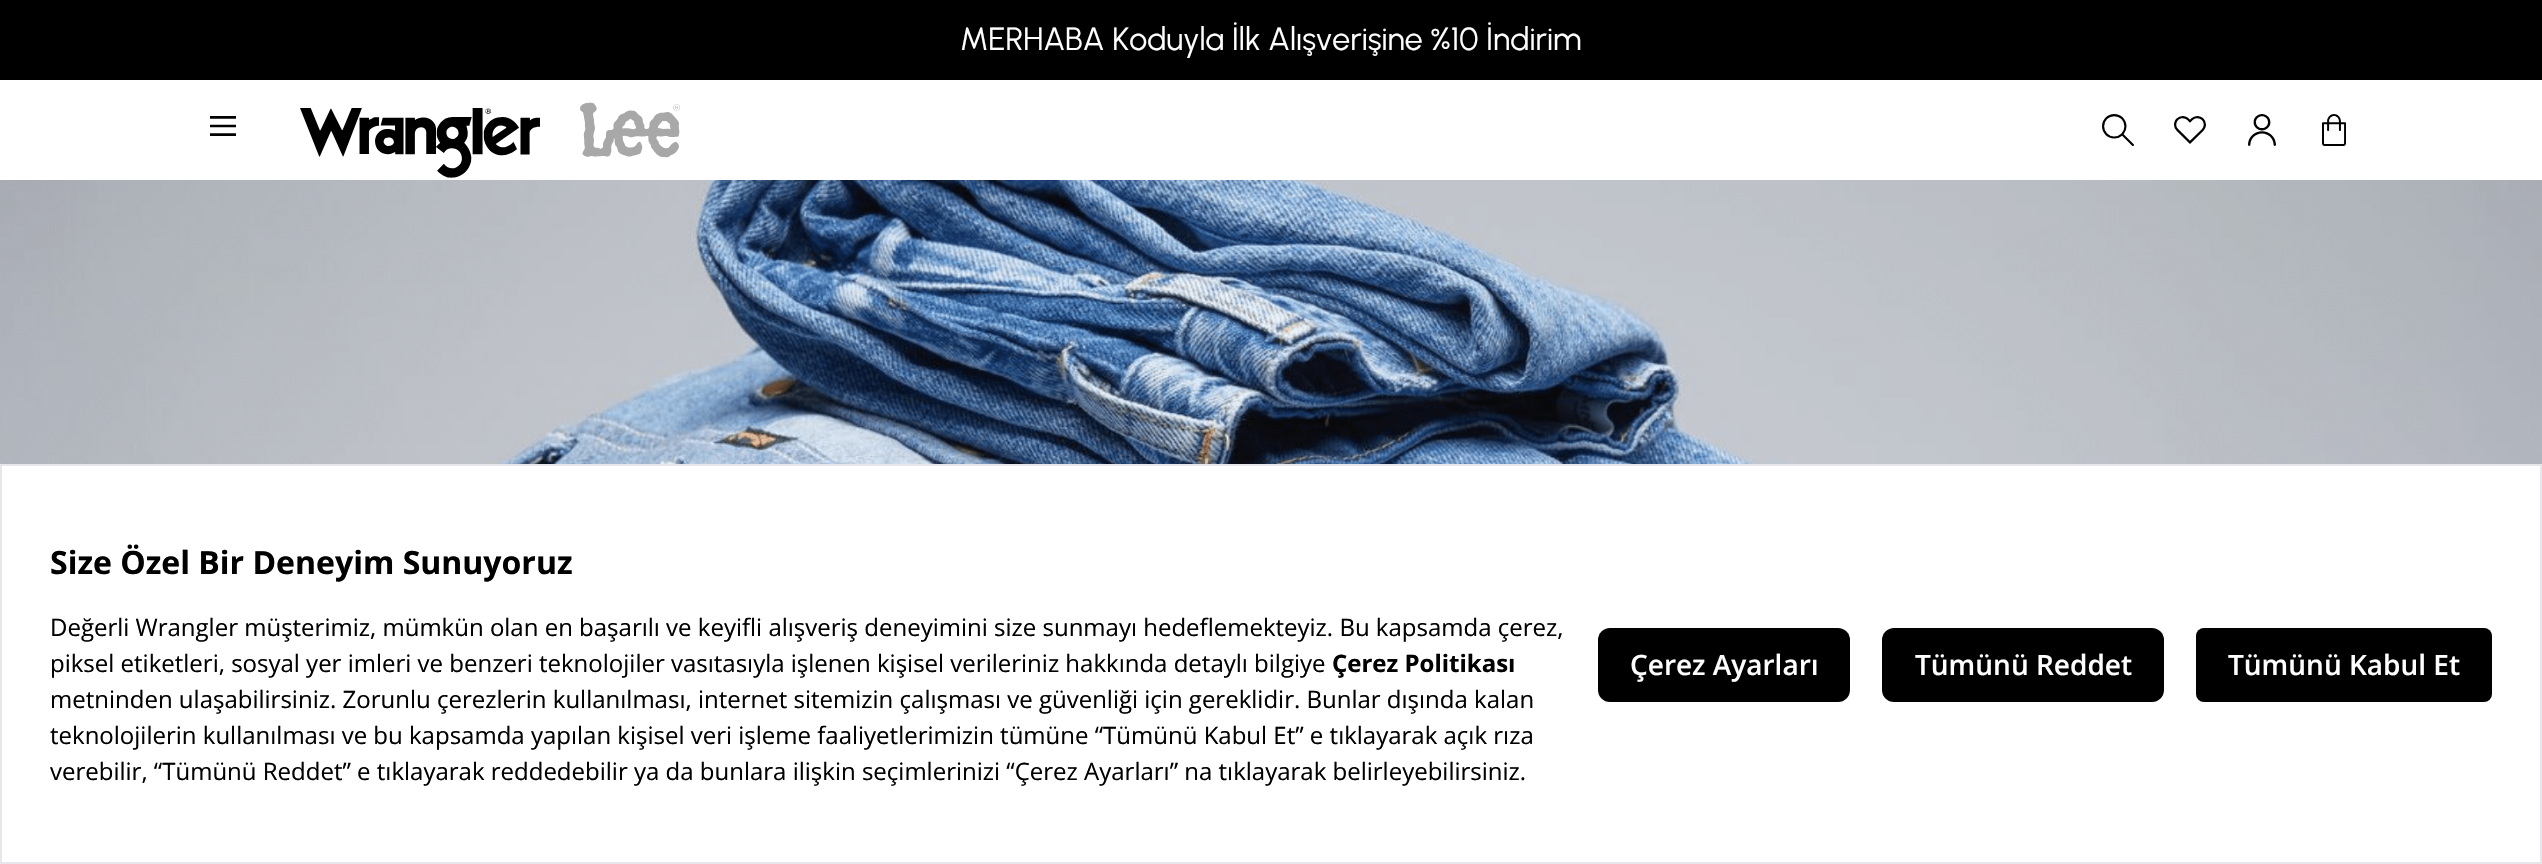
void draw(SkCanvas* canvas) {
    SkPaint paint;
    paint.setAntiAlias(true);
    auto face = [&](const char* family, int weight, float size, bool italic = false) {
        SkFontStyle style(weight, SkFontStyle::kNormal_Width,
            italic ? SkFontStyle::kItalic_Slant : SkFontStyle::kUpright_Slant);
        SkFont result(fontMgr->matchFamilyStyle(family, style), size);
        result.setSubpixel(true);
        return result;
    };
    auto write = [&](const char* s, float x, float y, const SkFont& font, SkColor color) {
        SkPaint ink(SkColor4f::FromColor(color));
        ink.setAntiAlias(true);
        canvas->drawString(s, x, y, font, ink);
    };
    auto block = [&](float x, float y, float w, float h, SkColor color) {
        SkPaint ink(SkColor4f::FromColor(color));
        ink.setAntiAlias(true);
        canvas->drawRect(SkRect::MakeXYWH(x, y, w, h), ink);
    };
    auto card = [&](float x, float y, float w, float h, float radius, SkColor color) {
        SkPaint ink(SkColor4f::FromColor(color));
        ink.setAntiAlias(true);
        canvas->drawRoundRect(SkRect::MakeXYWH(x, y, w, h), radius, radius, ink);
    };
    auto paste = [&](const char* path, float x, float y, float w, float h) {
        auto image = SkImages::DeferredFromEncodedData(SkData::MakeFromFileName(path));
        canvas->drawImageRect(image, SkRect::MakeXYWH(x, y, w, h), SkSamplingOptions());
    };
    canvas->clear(SK_ColorWHITE);
    block(0, 0, 2542, 80, SK_ColorBLACK);
    auto kFont1 = face("Urbanist", 400, 32);
    write("MERHABA Koduyla İlk Alışverişine %10 İndirim", 960, 50, kFont1, SK_ColorWHITE);
    paste("pic1.png", 210, 116, 26, 20);
    paste("pic2.png", 300, 108, 240, 70);
    paste("pic3.png", 580, 102, 100, 56);
    paste("pic4.png", 2102, 114, 32, 32);
    paste("pic5.png", 2174, 116, 32, 28);
    paste("pic6.png", 2248, 114, 28, 32);
    paste("pic7.png", 2322, 114, 24, 32);
    paste("pic8.png", 0, 180, 2542, 284);
    paint.setStyle(SkPaint::kStroke_Style);
    paint.setStrokeWidth(2);
    paint.setColor(SkColorSetRGB(229, 231, 235));
    canvas->drawRect(SkRect::MakeXYWH(1, 465, 2540, 398), paint);
    auto kFont2 = face("Open Sans", 700, 32);
    write("Size Özel Bir Deneyim Sunuyoruz", 50, 574, kFont2, SK_ColorBLACK);
    auto kFont3 = face("Open Sans", 400, 24);
    write("Değerli Wrangler müşterimiz, mümkün olan en başarılı ve keyifli alışveriş deneyimini size sunmayı hedeflemekteyiz. Bu kapsamda çerez,", 50, 636, kFont3, SK_ColorBLACK);
    write("piksel etiketleri, sosyal yer imleri ve benzeri teknolojiler vasıtasıyla işlenen kişisel verileriniz hakkında detaylı bilgiye", 50, 672, kFont3, SK_ColorBLACK);
    auto kFont4 = face("Open Sans", 700, 24);
    write("Çerez Politikası", 1332, 672, kFont4, SK_ColorBLACK);
    write("metninden ulaşabilirsiniz. Zorunlu çerezlerin kullanılması, internet sitemizin çalışması ve güvenliği için gereklidir. Bunlar dışında kalan", 50, 708, kFont3, SK_ColorBLACK);
    write("teknolojilerin kullanılması ve bu kapsamda yapılan kişisel veri işleme faaliyetlerimizin tümüne “Tümünü Kabul Et” e tıklayarak açık rıza", 50, 744, kFont3, SK_ColorBLACK);
    write("verebilir, “Tümünü Reddet” e tıklayarak reddedebilir ya da bunlara ilişkin seçimlerinizi “Çerez Ayarları” na tıklayarak belirleyebilirsiniz.", 50, 780, kFont3, SK_ColorBLACK);
    card(1598, 628, 252, 74, 12, SK_ColorBLACK);
    auto kFont5 = face("Open Sans", 600, 28);
    write("Çerez Ayarları", 1630, 675, kFont5, SK_ColorWHITE);
    card(1882, 628, 282, 74, 12, SK_ColorBLACK);
    write("Tümünü Reddet", 1915, 675, kFont5, SK_ColorWHITE);
    card(2196, 628, 296, 74, 8, SK_ColorBLACK);
    write("Tümünü Kabul Et", 2228, 675, kFont5, SK_ColorWHITE);
}
